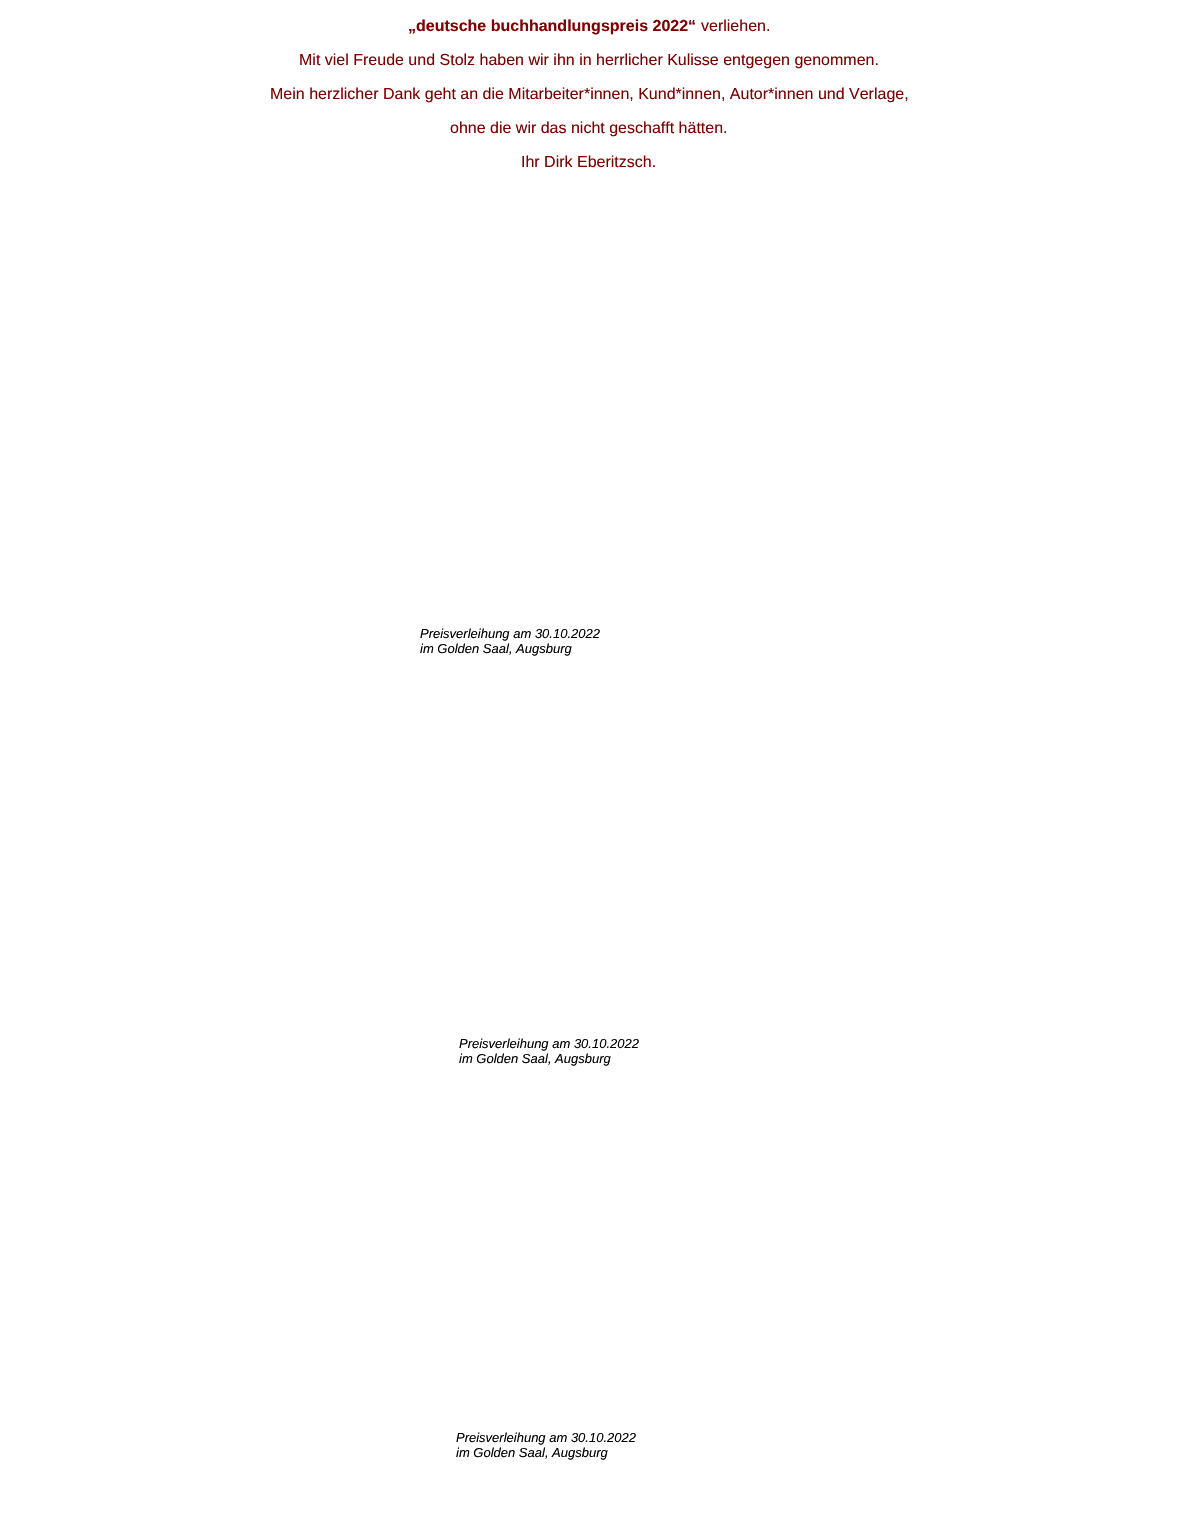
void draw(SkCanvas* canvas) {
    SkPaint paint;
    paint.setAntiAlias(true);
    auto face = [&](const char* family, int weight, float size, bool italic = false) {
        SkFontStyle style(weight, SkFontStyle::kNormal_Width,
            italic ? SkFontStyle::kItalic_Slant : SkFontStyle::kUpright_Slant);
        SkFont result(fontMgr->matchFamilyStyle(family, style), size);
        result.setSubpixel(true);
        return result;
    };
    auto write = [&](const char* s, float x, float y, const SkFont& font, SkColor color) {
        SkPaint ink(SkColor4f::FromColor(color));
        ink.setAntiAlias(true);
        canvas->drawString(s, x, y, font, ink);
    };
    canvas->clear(SK_ColorWHITE);
    auto kFont1 = face("Liberation Sans", 700, 16);
    write("„deutsche buchhandlungspreis 2022“", 408, 31, kFont1, SkColorSetRGB(128, 0, 0));
    auto kFont2 = face("Liberation Sans", 400, 16);
    write("verliehen.", 701, 31, kFont2, SkColorSetRGB(128, 0, 0));
    write("Mit viel Freude und Stolz haben wir ihn in herrlicher Kulisse entgegen genommen.", 299, 65, kFont2, SkColorSetRGB(128, 0, 0));
    write("Mein herzlicher Dank geht an die Mitarbeiter*innen, Kund*innen, Autor*innen und Verlage,", 270, 99, kFont2, SkColorSetRGB(128, 0, 0));
    write("ohne die wir das nicht geschafft hätten.", 450, 133, kFont2, SkColorSetRGB(128, 0, 0));
    write("Ihr Dirk Eberitzsch.", 521, 167, kFont2, SkColorSetRGB(128, 0, 0));
    auto kFont3 = face("Liberation Sans", 400, 13, true);
    write("Preisverleihung am 30.10.2022", 420, 638, kFont3, SK_ColorBLACK);
    write("im Golden Saal, Augsburg", 420, 653, kFont3, SK_ColorBLACK);
    write("Preisverleihung am 30.10.2022", 459, 1048, kFont3, SK_ColorBLACK);
    write("im Golden Saal, Augsburg", 459, 1063, kFont3, SK_ColorBLACK);
    write("Preisverleihung am 30.10.2022", 456, 1442, kFont3, SK_ColorBLACK);
    write("im Golden Saal, Augsburg", 456, 1457, kFont3, SK_ColorBLACK);
}
